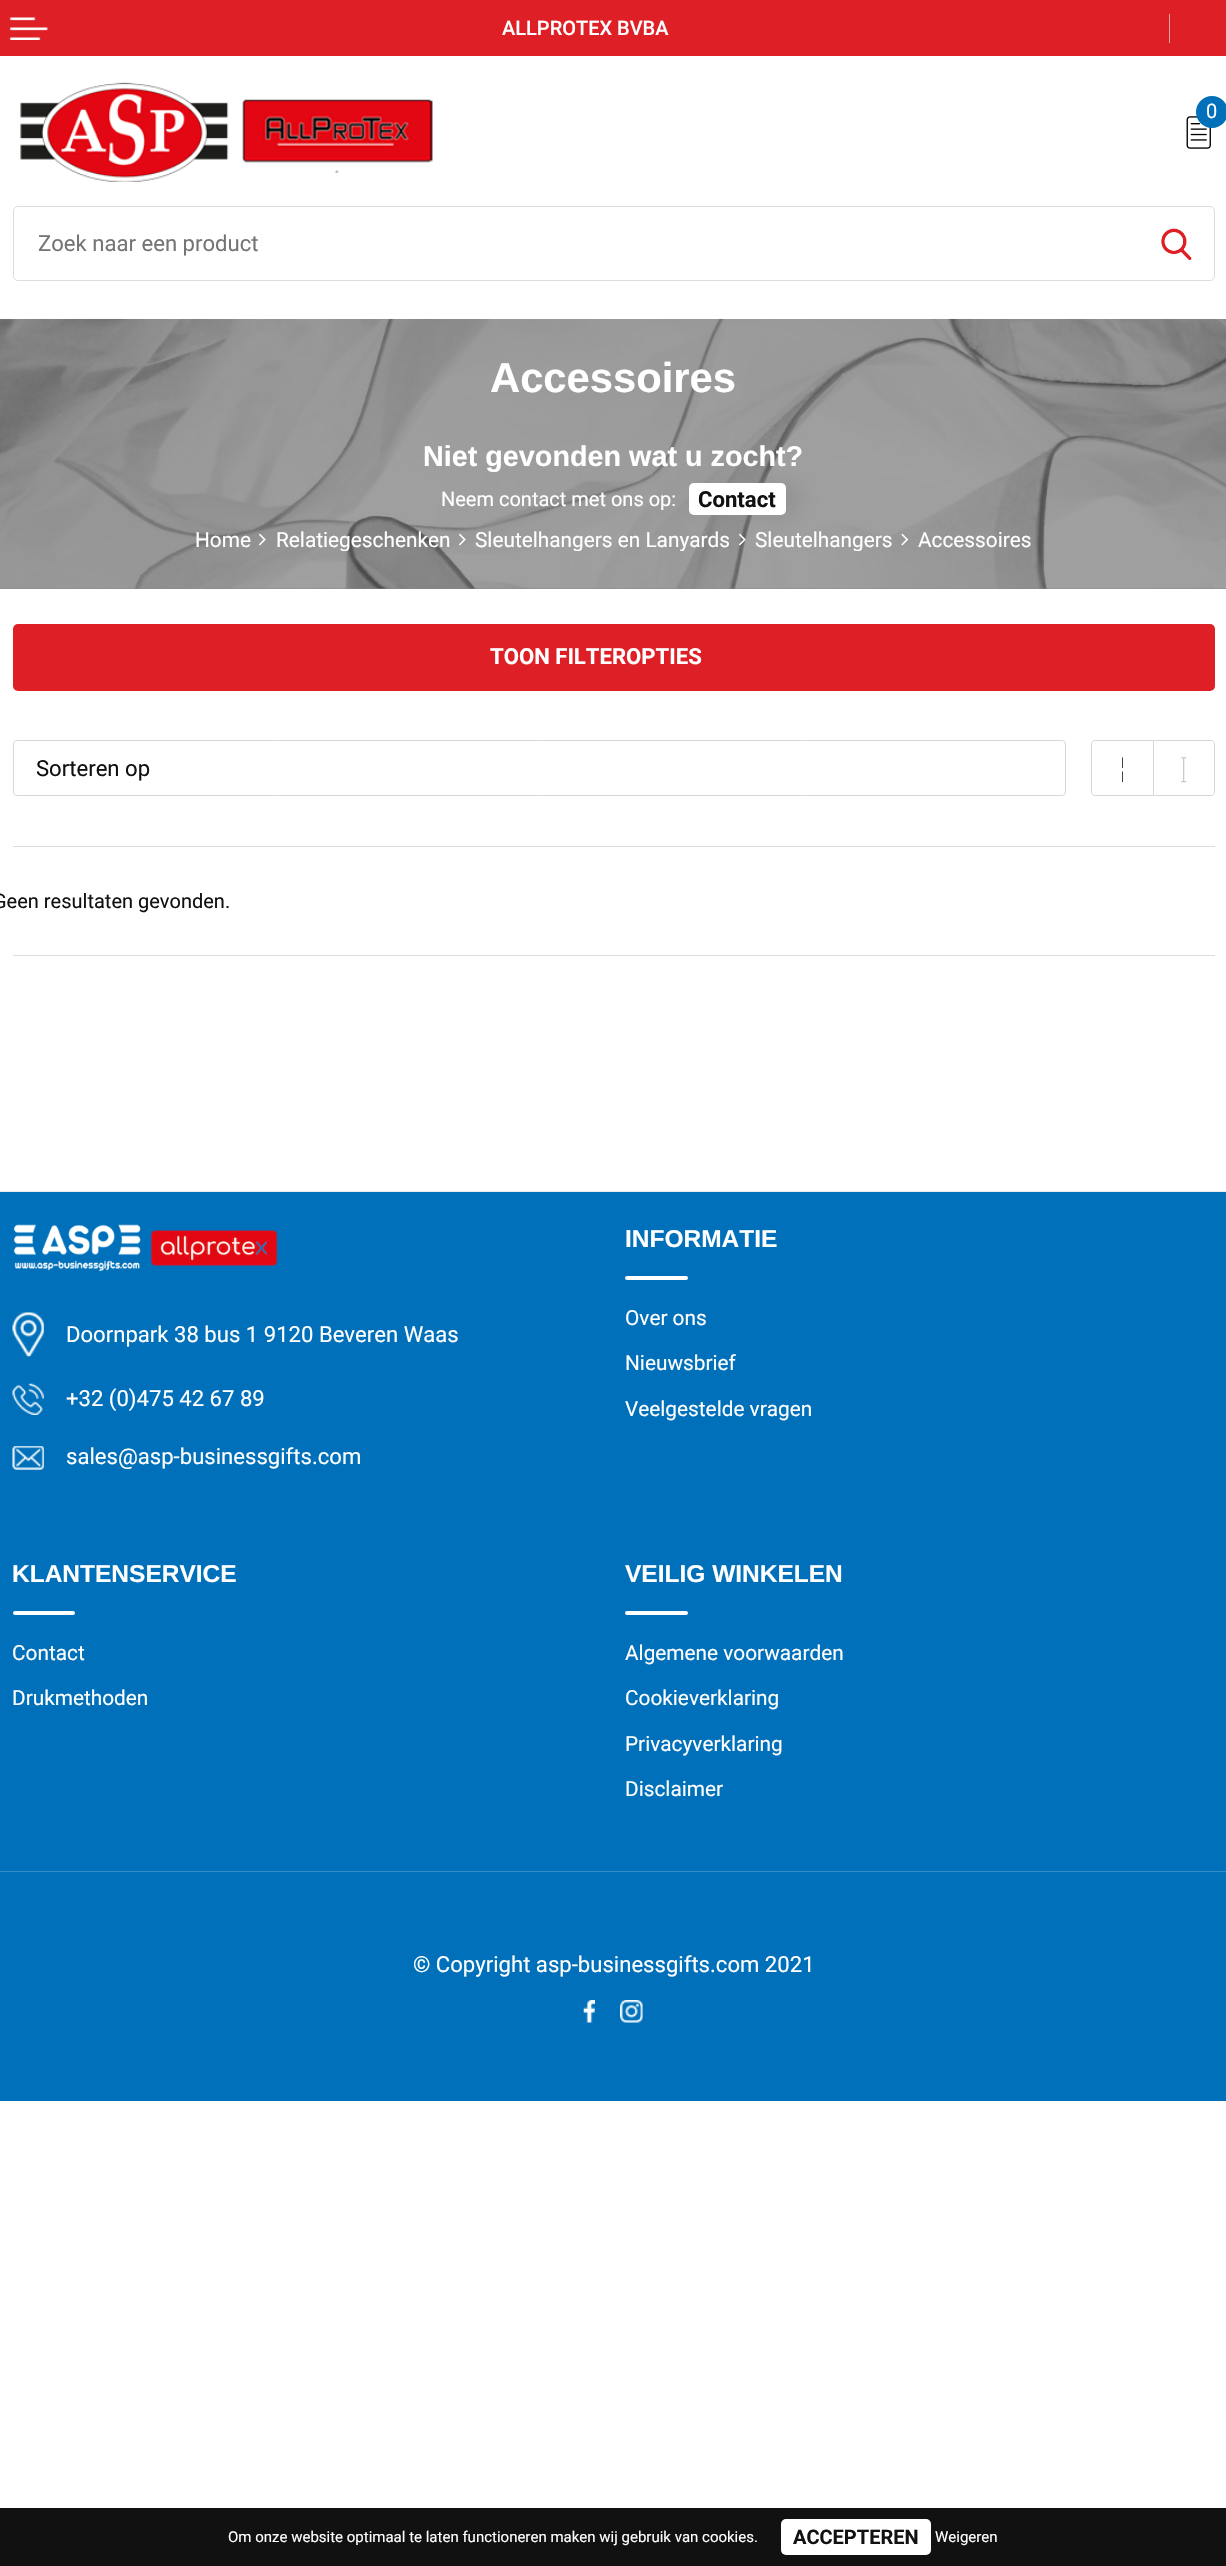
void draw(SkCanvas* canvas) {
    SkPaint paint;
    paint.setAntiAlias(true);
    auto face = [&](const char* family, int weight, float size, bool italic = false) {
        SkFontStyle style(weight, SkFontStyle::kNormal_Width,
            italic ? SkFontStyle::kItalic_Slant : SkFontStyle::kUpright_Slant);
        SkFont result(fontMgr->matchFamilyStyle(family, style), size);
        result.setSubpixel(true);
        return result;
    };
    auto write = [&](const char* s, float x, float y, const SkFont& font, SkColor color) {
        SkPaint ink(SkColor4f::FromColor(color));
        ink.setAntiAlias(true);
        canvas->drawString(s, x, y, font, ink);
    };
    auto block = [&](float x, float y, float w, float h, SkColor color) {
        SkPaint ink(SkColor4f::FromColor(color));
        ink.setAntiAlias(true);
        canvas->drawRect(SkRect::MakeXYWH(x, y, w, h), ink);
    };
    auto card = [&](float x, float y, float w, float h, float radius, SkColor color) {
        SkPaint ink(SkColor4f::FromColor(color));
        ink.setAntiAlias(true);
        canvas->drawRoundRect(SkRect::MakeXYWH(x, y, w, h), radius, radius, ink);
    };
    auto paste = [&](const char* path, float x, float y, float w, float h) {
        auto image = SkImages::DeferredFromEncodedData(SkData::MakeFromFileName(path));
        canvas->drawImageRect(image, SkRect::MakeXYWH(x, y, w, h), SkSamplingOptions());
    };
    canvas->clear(SK_ColorWHITE);
    block(0, 0, 1226, 56, SkColorSetRGB(222, 31, 38));
    paste("pic1.png", 9, 17, 39, 23);
    auto kFont1 = face("Roboto", 500, 20);
    write("ALLPROTEX BVBA", 502, 35, kFont1, SK_ColorWHITE);
    block(1169, 14, 1, 29, SkColorSetRGB(242, 165, 168));
    paste("pic2.png", 20, 82, 413, 100);
    paste("pic3.png", 1186, 116, 25, 33);
    paint.setColor(SkColorSetRGB(0, 112, 186));
    canvas->drawCircle(1212, 112, 16, paint);
    auto kFont2 = face("Roboto", 400, 20);
    write("0", 1206, 118, kFont2, SK_ColorWHITE);
    paint.setStyle(SkPaint::kStroke_Style);
    paint.setStrokeWidth(1);
    paint.setColor(SkColorSetRGB(221, 221, 221));
    canvas->drawRoundRect(SkRect::MakeXYWH(13.5f, 206.5f, 1201, 74), 4.5f, 4.5f, paint);
    paint.setStyle(SkPaint::kFill_Style);
    paint.setColor(SK_ColorWHITE);
    canvas->drawPath(SkPathBuilder().moveTo(19, 208).lineTo(1139, 208).lineTo(1139, 280).lineTo(19, 280).cubicTo(16, 280, 14, 278, 14, 275).lineTo(14, 213).cubicTo(14, 210, 16, 208, 19, 208).close().detach(), paint);
    auto kFont3 = face("Roboto", 400, 22.1f);
    write("Zoek naar een product", 38, 251, kFont3, SkColorSetRGB(117, 117, 117));
    canvas->drawPath(SkPathBuilder().moveTo(1139, 208).lineTo(1209, 208).cubicTo(1212, 208, 1214, 210, 1214, 213).lineTo(1214, 275).cubicTo(1214, 278, 1212, 280, 1209, 280).lineTo(1139, 280).close().detach(), paint);
    paste("pic4.png", 1161, 228, 31, 32);
    block(0, 588, 1226, 1, SkColorSetRGB(135, 135, 135));
    paste("pic5.png", 0, 318, 1226, 271);
    auto kFont4 = face("Liberation Sans", 700, 41.75f);
    write("Accessoires", 490, 392, kFont4, SK_ColorWHITE);
    auto kFont5 = face("Liberation Sans", 700, 28.75f);
    write("Niet gevonden wat u zocht?", 423, 466, kFont5, SK_ColorWHITE);
    write("Neem contact met ons op:", 441, 506, kFont2, SK_ColorWHITE);
    paint.setColor(SkColorSetARGB(166, 139, 139, 139));
    paint.setMaskFilter(SkMaskFilter::MakeBlur(kNormal_SkBlurStyle, 11));
    canvas->drawRoundRect(SkRect::MakeXYWH(703, 483, 97, 32), 5, 5, paint);
    paint.setMaskFilter(nullptr);
    card(689, 483, 97, 32, 5, SK_ColorWHITE);
    auto kFont6 = face("Roboto", 700, 22.1f);
    write("Contact", 698, 507, kFont6, SkColorSetRGB(17, 17, 17));
    auto kFont7 = face("Roboto", 400, 20.8f);
    write("Home", 195, 547, kFont7, SK_ColorWHITE);
    paste("pic6.png", 259, 533, 7, 13);
    canvas->save();
    canvas->clipPath(SkPathBuilder().moveTo(199, 528).lineTo(1027, 528).cubicTo(1029, 528, 1031, 530, 1031, 532).lineTo(1031, 547).cubicTo(1031, 549, 1029, 551, 1027, 551).lineTo(199, 551).cubicTo(197, 551, 195, 549, 195, 547).lineTo(195, 532).cubicTo(195, 530, 197, 528, 199, 528).close().detach(), true);
    write("Relatiegeschenken", 276, 547, kFont7, SK_ColorWHITE);
    canvas->restore();
    paste("pic7.png", 459, 533, 7, 13);
    canvas->save();
    canvas->clipPath(SkPathBuilder().moveTo(199, 528).lineTo(1027, 528).cubicTo(1029, 528, 1031, 530, 1031, 532).lineTo(1031, 547).cubicTo(1031, 549, 1029, 551, 1027, 551).lineTo(199, 551).cubicTo(197, 551, 195, 549, 195, 547).lineTo(195, 532).cubicTo(195, 530, 197, 528, 199, 528).close().detach(), true);
    write("Sleutelhangers en Lanyards", 475, 547, kFont7, SK_ColorWHITE);
    canvas->restore();
    paste("pic8.png", 739, 533, 7, 13);
    canvas->save();
    canvas->clipPath(SkPathBuilder().moveTo(199, 528).lineTo(1027, 528).cubicTo(1029, 528, 1031, 530, 1031, 532).lineTo(1031, 547).cubicTo(1031, 549, 1029, 551, 1027, 551).lineTo(199, 551).cubicTo(197, 551, 195, 549, 195, 547).lineTo(195, 532).cubicTo(195, 530, 197, 528, 199, 528).close().detach(), true);
    write("Sleutelhangers", 755, 547, kFont7, SK_ColorWHITE);
    canvas->restore();
    paste("pic9.png", 901, 533, 8, 13);
    write("Accessoires", 918, 547, kFont7, SK_ColorWHITE);
    card(13, 624, 1202, 67, 5, SkColorSetRGB(222, 31, 38));
    write("TOON FILTEROPTIES", 490, 664, kFont6, SK_ColorWHITE);
    block(13, 846, 1202, 1, SkColorSetRGB(221, 221, 221));
    paint.setStyle(SkPaint::kStroke_Style);
    paint.setColor(SkColorSetRGB(215, 215, 215));
    canvas->drawRoundRect(SkRect::MakeXYWH(13.5f, 740.5f, 1052, 55), 3.5f, 3.5f, paint);
    write("Sorteren op", 36, 776, kFont3, SkColorSetRGB(17, 17, 17));
    canvas->drawPath(SkPathBuilder().moveTo(1095, 740.5f).lineTo(1153.5f, 740.5f).lineTo(1153.5f, 795.5f).lineTo(1095, 795.5f).cubicTo(1093, 795.5f, 1091.5f, 794, 1091.5f, 792).lineTo(1091.5f, 744).cubicTo(1091.5f, 742, 1093, 740.5f, 1095, 740.5f).close().detach(), paint);
    paint.setStyle(SkPaint::kFill_Style);
    paint.setColor(SkColorSetRGB(68, 68, 68));
    canvas->drawPath(SkPathBuilder().moveTo(1123, 757.5f).lineTo(1123, 768).lineTo(1122, 768).lineTo(1122, 757.5f).close().moveTo(1123, 771.5f).lineTo(1123, 782).lineTo(1122, 782).lineTo(1122, 771.5f).close().detach(), paint);
    paint.setStyle(SkPaint::kStroke_Style);
    paint.setColor(SkColorSetRGB(215, 215, 215));
    canvas->drawPath(SkPathBuilder().moveTo(1153.5f, 740.5f).lineTo(1211, 740.5f).cubicTo(1213, 740.5f, 1214.5f, 742, 1214.5f, 744).lineTo(1214.5f, 792).cubicTo(1214.5f, 794, 1213, 795.5f, 1211, 795.5f).lineTo(1153.5f, 795.5f).close().detach(), paint);
    paste("pic10.png", 1181, 757, 6, 26);
    write("Geen resultaten gevonden.", -7, 908, kFont2, SkColorSetRGB(17, 17, 17));
    block(13, 955, 1202, 1, SkColorSetRGB(221, 221, 221));
    block(0, 1192, 1226, 909, SkColorSetRGB(0, 112, 186));
    block(0, 1191, 1226, 1, SkColorSetRGB(234, 234, 234));
    block(0, 1871, 1226, 1, SkColorSetRGB(51, 141, 200));
    paste("pic11.png", 13, 1224, 265, 48);
    paste("pic12.png", 12, 1312, 32, 45);
    write("Doornpark 38 bus 1 9120 Beveren Waas", 66, 1342, kFont3, SK_ColorWHITE);
    paste("pic13.png", 12, 1383, 32, 32);
    write("+32 (0)475 42 67 89", 66, 1406, kFont3, SK_ColorWHITE);
    paste("pic14.png", 12, 1446, 32, 24);
    write("sales@asp-businessgifts.com", 66, 1464, kFont3, SK_ColorWHITE);
    auto kFont8 = face("Liberation Sans", 700, 24.5f);
    write("INFORMATIE", 625, 1247, kFont8, SK_ColorWHITE);
    card(625, 1276, 63, 4, 2, SK_ColorWHITE);
    write("Over ons", 625, 1325, kFont7, SK_ColorWHITE);
    write("Nieuwsbrief", 625, 1370, kFont7, SK_ColorWHITE);
    write("Veelgestelde vragen", 625, 1416, kFont7, SK_ColorWHITE);
    write("KLANTENSERVICE", 12, 1582, kFont8, SK_ColorWHITE);
    card(13, 1611, 62, 4, 2, SK_ColorWHITE);
    write("Contact", 12, 1660, kFont7, SK_ColorWHITE);
    write("Drukmethoden", 12, 1705, kFont7, SK_ColorWHITE);
    write("VEILIG WINKELEN", 625, 1582, kFont8, SK_ColorWHITE);
    card(625, 1611, 63, 4, 2, SK_ColorWHITE);
    write("Algemene voorwaarden", 625, 1660, kFont7, SK_ColorWHITE);
    write("Cookieverklaring", 625, 1705, kFont7, SK_ColorWHITE);
    write("Privacyverklaring", 625, 1751, kFont7, SK_ColorWHITE);
    write("Disclaimer", 625, 1796, kFont7, SK_ColorWHITE);
    write("© Copyright asp-businessgifts.com 2021", 413, 1972, kFont3, SK_ColorWHITE);
    paste("pic15.png", 583, 2000, 12, 23);
    paste("pic16.png", 620, 2000, 23, 23);
    block(0, 2508, 1226, 58, SkColorSetRGB(17, 17, 17));
    auto kFont9 = face("Roboto", 400, 15);
    write("Om onze website optimaal te laten functioneren maken wij gebruik van cookies.", 228, 2542, kFont9, SK_ColorWHITE);
    card(781, 2519, 150, 36, 5, SK_ColorWHITE);
    auto kFont10 = face("Roboto", 700, 20);
    write("ACCEPTEREN", 793, 2544, kFont10, SkColorSetRGB(17, 17, 17));
    write("Weigeren", 935, 2542, kFont9, SK_ColorWHITE);
}
